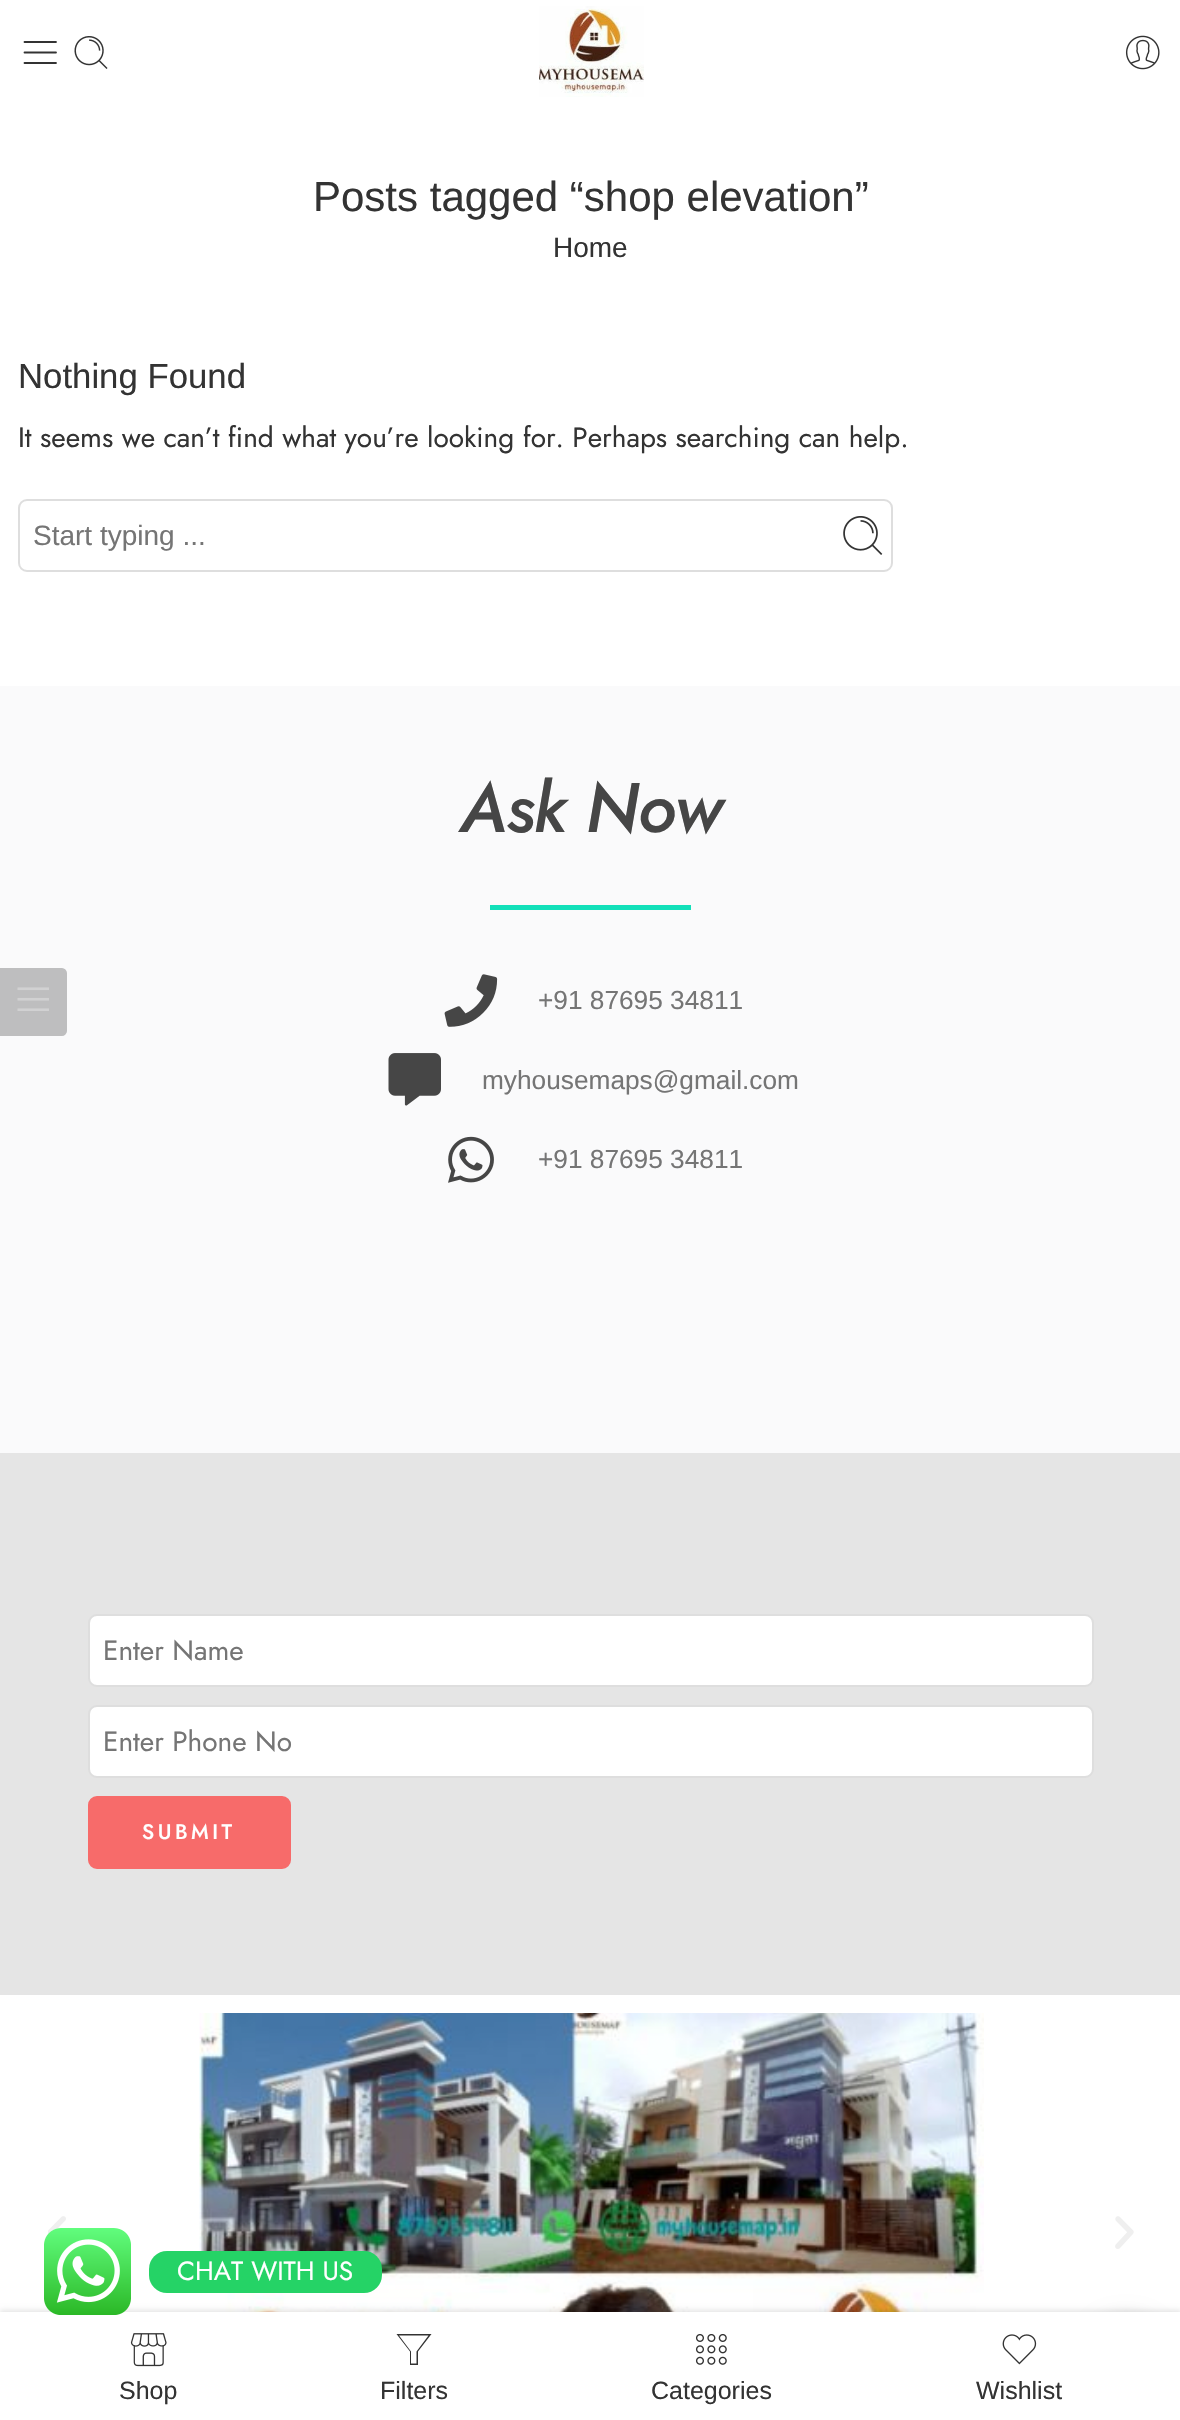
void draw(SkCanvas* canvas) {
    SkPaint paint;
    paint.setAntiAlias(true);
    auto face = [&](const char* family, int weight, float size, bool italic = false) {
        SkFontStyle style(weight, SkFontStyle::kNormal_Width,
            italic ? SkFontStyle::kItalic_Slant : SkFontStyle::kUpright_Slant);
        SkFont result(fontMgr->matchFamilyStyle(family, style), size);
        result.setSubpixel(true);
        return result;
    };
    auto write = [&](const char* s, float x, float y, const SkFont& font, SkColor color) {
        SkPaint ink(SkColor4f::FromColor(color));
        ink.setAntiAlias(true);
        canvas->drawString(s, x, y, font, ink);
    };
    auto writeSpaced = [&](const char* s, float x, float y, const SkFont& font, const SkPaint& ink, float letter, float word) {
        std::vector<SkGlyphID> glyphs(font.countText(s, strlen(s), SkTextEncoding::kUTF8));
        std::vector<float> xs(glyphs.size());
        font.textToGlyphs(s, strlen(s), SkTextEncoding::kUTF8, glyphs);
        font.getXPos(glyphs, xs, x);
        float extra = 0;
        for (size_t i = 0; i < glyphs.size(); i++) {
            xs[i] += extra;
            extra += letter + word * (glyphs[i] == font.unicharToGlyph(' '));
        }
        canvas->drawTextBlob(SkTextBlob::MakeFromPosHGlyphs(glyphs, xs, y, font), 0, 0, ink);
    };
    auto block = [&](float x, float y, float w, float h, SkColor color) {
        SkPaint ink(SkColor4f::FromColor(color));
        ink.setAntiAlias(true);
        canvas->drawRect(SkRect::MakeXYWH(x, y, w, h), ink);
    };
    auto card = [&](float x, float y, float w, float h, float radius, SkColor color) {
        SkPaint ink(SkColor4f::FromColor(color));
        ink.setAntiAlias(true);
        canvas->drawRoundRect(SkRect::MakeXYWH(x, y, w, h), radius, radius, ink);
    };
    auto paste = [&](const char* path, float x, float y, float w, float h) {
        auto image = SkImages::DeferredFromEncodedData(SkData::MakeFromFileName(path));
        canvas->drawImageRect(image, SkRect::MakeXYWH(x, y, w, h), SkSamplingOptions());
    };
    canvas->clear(SK_ColorWHITE);
    paint.setStyle(SkPaint::kStroke_Style);
    paint.setStrokeWidth(1.8f);
    paint.setStrokeCap(SkPaint::kRound_Cap);
    paint.setStrokeJoin(SkPaint::kRound_Join);
    paint.setColor(SkColorSetRGB(51, 51, 51));
    canvas->drawPath(SkPathBuilder().moveTo(24.5f, 52.5f).lineTo(56, 52.5f).moveTo(24.5f, 42).lineTo(56, 42).moveTo(24.5f, 63).lineTo(56, 63).detach(), paint);
    paste("pic1.png", 74, 36, 34, 33);
    paste("pic2.png", 539, 6, 105, 91);
    paste("pic3.png", 1125, 35, 35, 35);
    auto kFont1 = face("Liberation Sans", 400, 42);
    write("Posts tagged “shop elevation”", 313, 211, kFont1, SkColorSetRGB(51, 51, 51));
    auto kFont2 = face("Liberation Sans", 400, 28);
    write("Home", 553, 257, kFont2, SkColorSetRGB(51, 51, 51));
    auto kFont3 = face("Liberation Sans", 400, 34.75f);
    write("Nothing Found", 18, 388, kFont3, SkColorSetRGB(51, 51, 51));
    auto kFont4 = face("Jost", 400, 28);
    write("It seems we can’t find what you’re looking for. Perhaps searching can help.", 18, 447, kFont4, SkColorSetRGB(51, 51, 51));
    paint.setStrokeWidth(2);
    paint.setStrokeCap(SkPaint::kButt_Cap);
    paint.setStrokeJoin(SkPaint::kMiter_Join);
    paint.setColor(SkColorSetRGB(222, 222, 222));
    canvas->drawRoundRect(SkRect::MakeXYWH(19, 500, 873, 71), 8, 8, paint);
    write("Start typing ...", 33, 545, kFont2, SkColorSetRGB(117, 117, 117));
    paste("pic4.png", 843, 516, 40, 39);
    block(0, 686, 1180, 767, SkColorSetRGB(250, 250, 251));
    paint.setStyle(SkPaint::kFill_Style);
    paint.setColor(SkColorSetRGB(190, 190, 191));
    canvas->drawPath(SkPathBuilder().moveTo(1, 969).lineTo(62, 969).cubicTo(64, 969, 66, 971, 66, 973).lineTo(66, 1031).cubicTo(66, 1033, 64, 1035, 62, 1035).lineTo(1, 1035).close().detach(), paint);
    paint.setStyle(SkPaint::kStroke_Style);
    canvas->drawPath(SkPathBuilder().moveTo(1, 969).lineTo(62, 969).cubicTo(64, 969, 66, 971, 66, 973).lineTo(66, 1031).cubicTo(66, 1033, 64, 1035, 62, 1035).lineTo(1, 1035).close().detach(), paint);
    paste("pic5.png", 17, 987, 32, 24);
    auto kFont5 = face("Jost", 500, 70, true);
    paint.setStyle(SkPaint::kFill_Style);
    paint.setColor(SkColorSetRGB(70, 70, 70));
    writeSpaced("Ask Now", 460, 832, kFont5, paint, -1.25f, 0);
    block(490, 905, 201, 5, SkColorSetRGB(18, 224, 185));
    paste("pic6.png", 444, 974, 54, 53);
    auto kFont6 = face("Liberation Sans", 400, 26.25f);
    write("+91 87695 34811", 538, 1009, kFont6, SkColorSetRGB(117, 117, 117));
    paste("pic7.png", 388, 1053, 53, 53);
    write("myhousemaps@gmail.com", 482, 1089, kFont6, SkColorSetRGB(117, 117, 117));
    paste("pic8.png", 448, 1136, 46, 47);
    write("+91 87695 34811", 538, 1168, kFont6, SkColorSetRGB(117, 117, 117));
    block(0, 1453, 1180, 542, SkColorSetRGB(229, 229, 229));
    paint.setColor(SK_ColorWHITE);
    canvas->drawRoundRect(SkRect::MakeXYWH(89, 1615, 1004, 71), 8, 8, paint);
    paint.setStyle(SkPaint::kStroke_Style);
    paint.setColor(SkColorSetRGB(222, 222, 222));
    canvas->drawRoundRect(SkRect::MakeXYWH(89, 1615, 1004, 71), 8, 8, paint);
    write("Enter Name", 103, 1660, kFont4, SkColorSetRGB(117, 117, 117));
    paint.setStyle(SkPaint::kFill_Style);
    paint.setColor(SK_ColorWHITE);
    canvas->drawRoundRect(SkRect::MakeXYWH(89, 1706, 1004, 71), 8, 8, paint);
    paint.setStyle(SkPaint::kStroke_Style);
    paint.setColor(SkColorSetRGB(222, 222, 222));
    canvas->drawRoundRect(SkRect::MakeXYWH(89, 1706, 1004, 71), 8, 8, paint);
    write("Enter Phone No", 103, 1751, kFont4, SkColorSetRGB(117, 117, 117));
    paint.setStyle(SkPaint::kFill_Style);
    paint.setColor(SkColorSetRGB(247, 107, 106));
    canvas->drawRoundRect(SkRect::MakeXYWH(89, 1797, 201, 71), 8, 8, paint);
    paint.setStyle(SkPaint::kStroke_Style);
    canvas->drawRoundRect(SkRect::MakeXYWH(89, 1797, 201, 71), 8, 8, paint);
    auto kFont7 = face("Jost", 500, 21);
    paint.setStyle(SkPaint::kFill_Style);
    paint.setColor(SK_ColorWHITE);
    writeSpaced("SUBMIT", 142, 1839, kFont7, paint, 3.5f, 0);
    paste("pic9.png", 48, 2216, 18, 19);
    paste("pic10.png", 199, 2013, 785, 299);
    paste("pic11.png", 1115, 2216, 19, 33);
    paint.setColor(SkColorSetARGB(26, 0, 0, 0));
    paint.setMaskFilter(SkMaskFilter::MakeBlur(kNormal_SkBlurStyle, 2.5f));
    canvas->drawRect(SkRect::MakeXYWH(0, 2310, 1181, 109), paint);
    paint.setMaskFilter(nullptr);
    paint.setMaskFilter(SkMaskFilter::MakeBlur(kNormal_SkBlurStyle, 9));
    canvas->drawRoundRect(SkRect::MakeXYWH(1085, 2315, 82, 83), 41, 41, paint);
    paint.setMaskFilter(nullptr);
    block(0, 2312, 1180, 108, SK_ColorWHITE);
    paste("pic12.png", 44, 2228, 87, 87);
    card(149, 2251, 233, 42, 18, SkColorSetRGB(37, 211, 102));
    auto kFont8 = face("Jost", 400, 26.25f);
    write("CHAT WITH US", 177, 2280, kFont8, SK_ColorWHITE);
    paste("pic13.png", 130, 2333, 37, 34);
    auto kFont9 = face("Liberation Sans", 400, 25);
    write("Shop", 119, 2399, kFont9, SkColorSetRGB(51, 51, 51));
    paint.setColor(SkColorSetRGB(51, 51, 51));
    canvas->drawPath(SkPathBuilder().moveTo(418, 2365).lineTo(410, 2365).lineTo(410, 2351.5f).lineTo(396.5f, 2334).lineTo(431.5f, 2334).lineTo(418, 2351.5f).close().moveTo(411, 2363.5f).lineTo(416.5f, 2363.5f).lineTo(416.5f, 2351.5f).lineTo(428.5f, 2335.5f).lineTo(399, 2335.5f).lineTo(411, 2351.5f).close().detach(), paint);
    write("Filters", 380, 2399, kFont9, SkColorSetRGB(51, 51, 51));
    paste("pic14.png", 695, 2334, 32, 31);
    write("Categories", 651, 2399, kFont9, SkColorSetRGB(51, 51, 51));
    paste("pic15.png", 1002, 2334, 35, 31);
    write("Wishlist", 976, 2399, kFont9, SkColorSetRGB(51, 51, 51));
}
